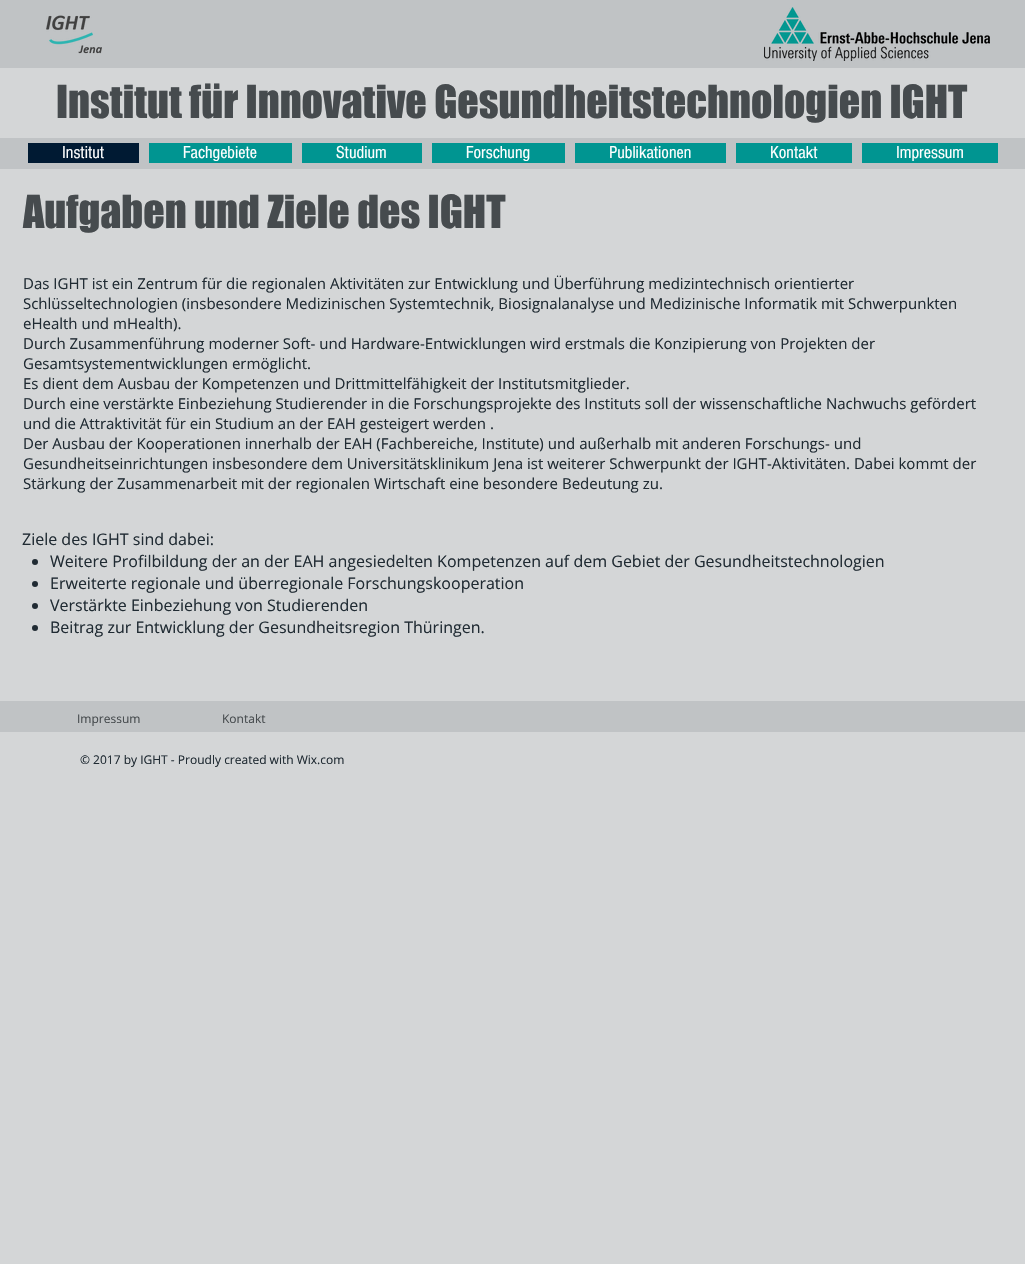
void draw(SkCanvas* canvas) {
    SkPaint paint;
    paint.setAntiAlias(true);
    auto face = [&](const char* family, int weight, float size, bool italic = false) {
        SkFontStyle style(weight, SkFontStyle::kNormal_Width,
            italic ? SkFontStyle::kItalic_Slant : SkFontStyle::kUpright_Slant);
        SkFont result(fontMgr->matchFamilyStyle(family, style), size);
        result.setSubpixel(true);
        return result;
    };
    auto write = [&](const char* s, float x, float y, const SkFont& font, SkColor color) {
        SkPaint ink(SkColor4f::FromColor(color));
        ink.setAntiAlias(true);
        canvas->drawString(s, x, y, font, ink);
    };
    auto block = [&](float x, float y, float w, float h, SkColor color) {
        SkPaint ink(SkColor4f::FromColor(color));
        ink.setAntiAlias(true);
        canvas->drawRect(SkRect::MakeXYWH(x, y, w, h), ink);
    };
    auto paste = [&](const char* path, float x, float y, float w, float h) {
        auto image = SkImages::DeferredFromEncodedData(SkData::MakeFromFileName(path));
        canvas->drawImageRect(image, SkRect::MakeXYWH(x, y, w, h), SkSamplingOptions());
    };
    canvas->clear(SkColorSetRGB(212, 214, 215));
    block(0, 0, 1025, 68, SkColorSetRGB(192, 195, 197));
    paste("pic1.png", 46, 15, 56, 39);
    paste("pic2.png", 764, 7, 226, 54);
    auto kFont1 = face("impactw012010", 400, 42);
    write("Institut für Innovative Gesundheitstechnologien IGHT", 56, 118, kFont1, SkColorSetRGB(70, 75, 78));
    block(0, 138, 1025, 31, SkColorSetRGB(192, 195, 197));
    block(28, 143, 111, 20, SkColorSetRGB(0, 26, 51));
    auto kFont2 = face("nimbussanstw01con", 400, 18);
    write("Institut", 62, 158, kFont2, SK_ColorWHITE);
    block(149, 143, 143, 20, SkColorSetRGB(0, 149, 145));
    write("Fachgebiete", 183, 158, kFont2, SK_ColorWHITE);
    block(302, 143, 120, 20, SkColorSetRGB(0, 149, 145));
    write("Studium", 336, 158, kFont2, SK_ColorWHITE);
    block(432, 143, 133, 20, SkColorSetRGB(0, 149, 145));
    write("Forschung", 466, 158, kFont2, SK_ColorWHITE);
    block(575, 143, 151, 20, SkColorSetRGB(0, 149, 145));
    write("Publikationen", 609, 158, kFont2, SK_ColorWHITE);
    block(736, 143, 116, 20, SkColorSetRGB(0, 149, 145));
    write("Kontakt", 770, 158, kFont2, SK_ColorWHITE);
    block(862, 143, 136, 20, SkColorSetRGB(0, 149, 145));
    write("Impressum", 896, 158, kFont2, SK_ColorWHITE);
    write("Aufgaben und Ziele des IGHT", 23, 228, kFont1, SkColorSetRGB(70, 75, 78));
    auto kFont3 = face("Open Sans", 400, 15);
    write("Das IGHT ist ein Zentrum für die regionalen Aktivitäten zur Entwicklung und Überführung medizintechnisch orientierter", 23, 289, kFont3, SkColorSetRGB(32, 43, 51));
    write("Schlüsseltechnologien (insbesondere Medizinischen Systemtechnik, Biosignalanalyse und Medizinische Informatik mit Schwerpunkten", 23, 309, kFont3, SkColorSetRGB(32, 43, 51));
    write("eHealth und mHealth).", 23, 329, kFont3, SkColorSetRGB(32, 43, 51));
    write("Durch Zusammenführung moderner Soft- und Hardware-Entwicklungen wird erstmals die Konzipierung von Projekten der", 23, 349, kFont3, SkColorSetRGB(32, 43, 51));
    write("Gesamtsystementwicklungen ermöglicht.", 23, 369, kFont3, SkColorSetRGB(32, 43, 51));
    write("Es dient dem Ausbau der Kompetenzen und Drittmittelfähigkeit der Institutsmitglieder.", 23, 389, kFont3, SkColorSetRGB(32, 43, 51));
    write("Durch eine verstärkte Einbeziehung Studierender in die Forschungsprojekte des Instituts soll der wissenschaftliche Nachwuchs gefördert", 23, 409, kFont3, SkColorSetRGB(32, 43, 51));
    write("und die Attraktivität für ein Studium an der EAH gesteigert werden .", 23, 429, kFont3, SkColorSetRGB(32, 43, 51));
    write("Der Ausbau der Kooperationen innerhalb der EAH (Fachbereiche, Institute) und außerhalb mit anderen Forschungs- und", 23, 449, kFont3, SkColorSetRGB(32, 43, 51));
    write("Gesundheitseinrichtungen insbesondere dem Universitätsklinikum Jena ist weiterer Schwerpunkt der IGHT-Aktivitäten. Dabei kommt der", 23, 469, kFont3, SkColorSetRGB(32, 43, 51));
    write("Stärkung der Zusammenarbeit mit der regionalen Wirtschaft eine besondere Bedeutung zu.", 23, 489, kFont3, SkColorSetRGB(32, 43, 51));
    auto kFont4 = face("Open Sans", 400, 16);
    write("Ziele des IGHT sind dabei:", 22, 545, kFont4, SkColorSetRGB(32, 43, 51));
    paint.setColor(SkColorSetRGB(32, 43, 51));
    canvas->drawCircle(35, 562, 3, paint);
    write("Weitere Profilbildung der an der EAH angesiedelten Kompetenzen auf dem Gebiet der Gesundheitstechnologien", 50, 567, kFont4, SkColorSetRGB(32, 43, 51));
    canvas->drawCircle(35, 584, 3, paint);
    write("Erweiterte regionale und überregionale Forschungskooperation", 50, 589, kFont4, SkColorSetRGB(32, 43, 51));
    canvas->drawCircle(35, 606, 3, paint);
    write("Verstärkte Einbeziehung von Studierenden", 50, 611, kFont4, SkColorSetRGB(32, 43, 51));
    canvas->drawCircle(35, 628, 3, paint);
    write("Beitrag zur Entwicklung der Gesundheitsregion Thüringen.", 50, 633, kFont4, SkColorSetRGB(32, 43, 51));
    block(0, 701, 1025, 31, SkColorSetRGB(192, 195, 197));
    auto kFont5 = face("Open Sans", 400, 12);
    write("Impressum", 77, 723, kFont5, SkColorSetRGB(70, 75, 78));
    write("Kontakt", 222, 723, kFont5, SkColorSetRGB(70, 75, 78));
    write("© 2017 by IGHT - Proudly created with Wix.com", 80, 764, kFont5, SkColorSetRGB(32, 43, 51));
}
